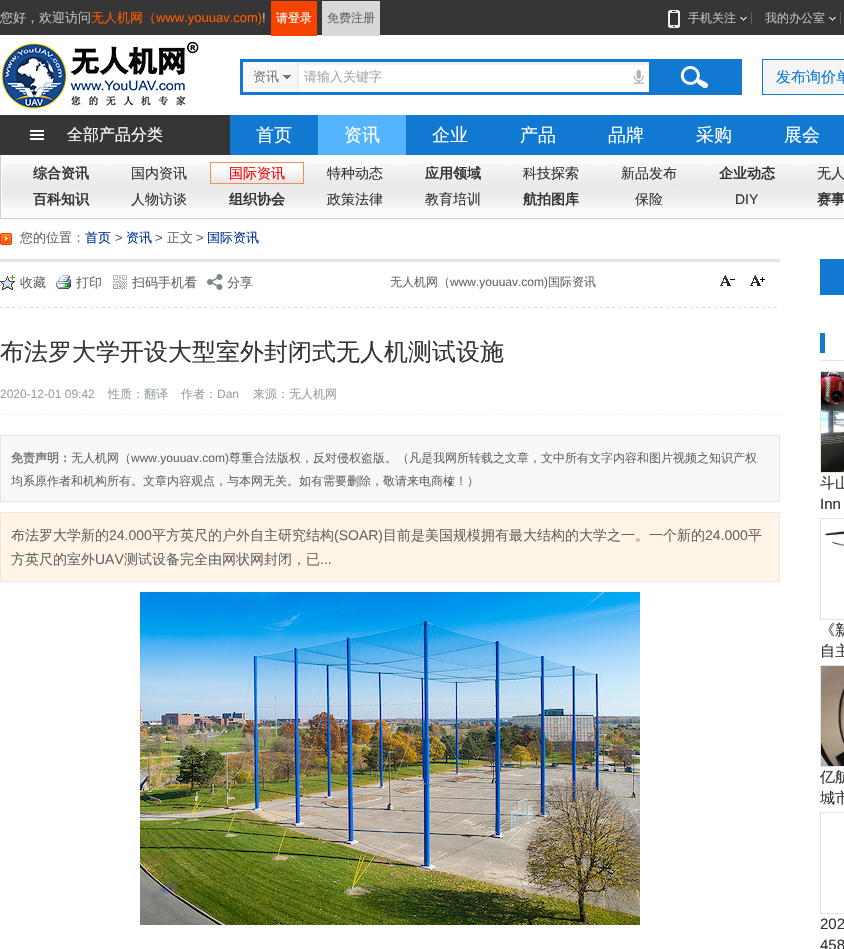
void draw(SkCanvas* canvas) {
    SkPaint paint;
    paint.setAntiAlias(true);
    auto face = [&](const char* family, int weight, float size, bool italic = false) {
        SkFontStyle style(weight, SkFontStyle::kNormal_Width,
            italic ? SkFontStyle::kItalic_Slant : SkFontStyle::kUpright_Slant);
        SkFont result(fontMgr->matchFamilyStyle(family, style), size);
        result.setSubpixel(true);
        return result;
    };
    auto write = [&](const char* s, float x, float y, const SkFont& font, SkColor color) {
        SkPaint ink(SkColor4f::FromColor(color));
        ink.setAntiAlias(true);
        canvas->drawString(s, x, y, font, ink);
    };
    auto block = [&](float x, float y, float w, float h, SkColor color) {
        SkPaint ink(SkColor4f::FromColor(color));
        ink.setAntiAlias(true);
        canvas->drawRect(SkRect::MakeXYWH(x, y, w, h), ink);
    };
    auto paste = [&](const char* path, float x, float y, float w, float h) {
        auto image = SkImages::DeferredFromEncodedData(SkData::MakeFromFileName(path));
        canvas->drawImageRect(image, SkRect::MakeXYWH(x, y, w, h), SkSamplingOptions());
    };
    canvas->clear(SK_ColorWHITE);
    block(0, 0, 844, 35, SkColorSetRGB(54, 54, 54));
    auto kFont1 = face("WenQuanYi Zen Hei", 500, 13);
    write("您好，欢迎访问", 0, 22, kFont1, SkColorSetRGB(191, 191, 191));
    write("无人机网（", 91, 22, kFont1, SkColorSetRGB(255, 90, 0));
    auto kFont2 = face("Liberation Sans", 400, 13);
    write("www.youuav.com)", 156, 22, kFont2, SkColorSetRGB(255, 90, 0));
    write("!", 262, 22, kFont2, SkColorSetRGB(191, 191, 191));
    block(271, 1, 46, 35, SkColorSetRGB(246, 68, 0));
    auto kFont3 = face("WenQuanYi Zen Hei", 500, 12);
    write("请登录", 276, 22, kFont3, SK_ColorWHITE);
    block(322, 1, 58, 35, SkColorSetRGB(216, 216, 216));
    write("免费注册", 327, 22, kFont3, SkColorSetRGB(102, 102, 102));
    block(751, 12, 1, 12, SkColorSetRGB(96, 96, 96));
    paste("pic1.png", 740, 17, 7, 4);
    paste("pic2.png", 668, 10, 12, 18);
    write("手机关注", 688, 22, kFont3, SkColorSetRGB(191, 191, 191));
    block(840, 12, 1, 12, SkColorSetRGB(96, 96, 96));
    paste("pic1.png", 829, 17, 7, 4);
    write("我的办公室", 765, 22, kFont3, SkColorSetRGB(191, 191, 191));
    paste("pic3.png", 1, 41, 198, 68);
    paint.setStyle(SkPaint::kStroke_Style);
    paint.setStrokeWidth(3);
    paint.setColor(SkColorSetRGB(17, 121, 209));
    canvas->drawRect(SkRect::MakeXYWH(241.5f, 60.5f, 499, 33), paint);
    paste("pic4.png", 243, 62, 56, 30);
    write("资讯", 253, 81, kFont1, SkColorSetRGB(119, 119, 119));
    block(299, 62, 350, 3, SkColorSetRGB(242, 242, 242));
    write("请输入关键字", 304, 81, kFont1, SkColorSetRGB(169, 169, 169));
    paste("pic5.png", 634, 69, 10, 15);
    paste("pic6.png", 649, 62, 90, 30);
    paint.setStyle(SkPaint::kFill_Style);
    paint.setColor(SkColorSetRGB(245, 245, 245));
    canvas->drawRect(SkRect::MakeXYWH(762.5f, 59.5f, 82, 35), paint);
    paint.setStyle(SkPaint::kStroke_Style);
    paint.setStrokeWidth(1);
    paint.setColor(SkColorSetRGB(17, 121, 209));
    canvas->drawRect(SkRect::MakeXYWH(762.5f, 59.5f, 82, 35), paint);
    auto kFont4 = face("WenQuanYi Zen Hei", 500, 15);
    write("发布询价单", 776, 82, kFont4, SkColorSetRGB(17, 121, 209));
    block(230, 115, 614, 40, SkColorSetRGB(17, 121, 209));
    block(0, 115, 230, 40, SkColorSetRGB(54, 54, 54));
    paste("pic7.png", 30, 130, 14, 10);
    auto kFont5 = face("WenQuanYi Zen Hei", 500, 16);
    write("全部产品分类", 67, 140, kFont5, SK_ColorWHITE);
    auto kFont6 = face("WenQuanYi Zen Hei", 500, 18);
    write("首页", 256, 141, kFont6, SK_ColorWHITE);
    block(318, 115, 88, 40, SkColorSetRGB(85, 180, 255));
    write("资讯", 344, 141, kFont6, SK_ColorWHITE);
    write("企业", 432, 141, kFont6, SK_ColorWHITE);
    write("产品", 520, 141, kFont6, SK_ColorWHITE);
    write("品牌", 608, 141, kFont6, SK_ColorWHITE);
    write("采购", 696, 141, kFont6, SK_ColorWHITE);
    write("展会", 784, 141, kFont6, SK_ColorWHITE);
    block(2, 155, 842, 62, SkColorSetRGB(251, 251, 251));
    paste("pic8.png", 2, 164, 842, 44);
    block(0, 218, 844, 1, SkColorSetRGB(204, 204, 204));
    block(0, 155, 1, 64, SkColorSetRGB(204, 204, 204));
    auto kFont7 = face("WenQuanYi Zen Hei", 700, 14);
    write("综合资讯", 33, 178, kFont7, SkColorSetRGB(51, 51, 51));
    block(207, 177, 1, 1, SkColorSetRGB(241, 241, 241));
    auto kFont8 = face("WenQuanYi Zen Hei", 500, 14);
    write("国内资讯", 131, 178, kFont8, SkColorSetRGB(51, 51, 51));
    paste("pic9.png", 211, 164, 92, 19);
    paint.setColor(SkColorSetRGB(244, 142, 82));
    canvas->drawRect(SkRect::MakeXYWH(210.5f, 162.5f, 93, 21), paint);
    write("国际资讯", 229, 178, kFont8, SkColorSetRGB(255, 0, 0));
    write("特种动态", 327, 178, kFont8, SkColorSetRGB(51, 51, 51));
    write("应用领域", 425, 178, kFont7, SkColorSetRGB(51, 51, 51));
    write("科技探索", 523, 178, kFont8, SkColorSetRGB(51, 51, 51));
    write("新品发布", 621, 178, kFont8, SkColorSetRGB(51, 51, 51));
    write("企业动态", 719, 178, kFont7, SkColorSetRGB(51, 51, 51));
    write("无人", 817, 178, kFont8, SkColorSetRGB(51, 51, 51));
    block(109, 194, 1, 1, SkColorSetRGB(241, 241, 241));
    write("百科知识", 33, 204, kFont7, SkColorSetRGB(51, 51, 51));
    block(207, 194, 1, 1, SkColorSetRGB(241, 241, 241));
    write("人物访谈", 131, 204, kFont8, SkColorSetRGB(51, 51, 51));
    write("组织协会", 229, 204, kFont7, SkColorSetRGB(51, 51, 51));
    write("政策法律", 327, 204, kFont8, SkColorSetRGB(51, 51, 51));
    write("教育培训", 425, 204, kFont8, SkColorSetRGB(51, 51, 51));
    block(599, 194, 1, 1, SkColorSetRGB(241, 241, 241));
    write("航拍图库", 523, 204, kFont7, SkColorSetRGB(51, 51, 51));
    block(697, 194, 1, 1, SkColorSetRGB(241, 241, 241));
    write("保险", 635, 204, kFont8, SkColorSetRGB(51, 51, 51));
    auto kFont9 = face("Liberation Sans", 400, 14);
    write("DIY", 735, 204, kFont9, SkColorSetRGB(51, 51, 51));
    write("赛事", 817, 204, kFont7, SkColorSetRGB(51, 51, 51));
    paste("pic10.png", 0, 233, 12, 12);
    write("您的位置：", 20, 242, kFont1, SkColorSetRGB(102, 102, 102));
    write("首页", 85, 242, kFont1, SkColorSetRGB(0, 51, 153));
    write(">", 115, 242, kFont2, SkColorSetRGB(102, 102, 102));
    write("资讯", 126, 242, kFont1, SkColorSetRGB(0, 51, 153));
    write(">", 155, 242, kFont2, SkColorSetRGB(102, 102, 102));
    write("正文", 167, 242, kFont1, SkColorSetRGB(102, 102, 102));
    write(">", 196, 242, kFont2, SkColorSetRGB(102, 102, 102));
    write("国际资讯", 207, 242, kFont1, SkColorSetRGB(0, 51, 153));
    block(0, 259, 780, 3, SkColorSetRGB(229, 229, 229));
    paste("pic11.png", 0, 275, 15, 15);
    write("收藏", 20, 287, kFont1, SkColorSetRGB(102, 102, 102));
    paste("pic12.png", 56, 275, 15, 14);
    write("打印", 76, 287, kFont1, SkColorSetRGB(102, 102, 102));
    paste("pic13.png", 113, 275, 14, 14);
    write("扫码手机看", 132, 287, kFont1, SkColorSetRGB(102, 102, 102));
    paste("pic14.png", 207, 274, 16, 16);
    write("分享", 227, 287, kFont1, SkColorSetRGB(102, 102, 102));
    write("无人机网（", 390, 286, kFont3, SkColorSetRGB(102, 102, 102));
    auto kFont10 = face("Liberation Sans", 400, 12);
    write("www.youuav.com)", 450, 286, kFont10, SkColorSetRGB(102, 102, 102));
    write("国际资讯", 548, 286, kFont3, SkColorSetRGB(102, 102, 102));
    paste("pic15.png", 720, 275, 15, 11);
    paste("pic16.png", 750, 275, 15, 11);
    paste("pic17.png", 0, 307, 777, 1);
    auto kFont11 = face("WenQuanYi Zen Hei", 500, 24);
    write("布法罗大学开设大型室外封闭式无人机测试设施", 0, 360, kFont11, SkColorSetRGB(51, 51, 51));
    paint.setColor(SkColorSetRGB(241, 241, 241));
    paint.setPathEffect(SkDashPathEffect::Make({{3, 2.01f}}, 0));
    canvas->drawPath(SkPathBuilder().moveTo(0, 414.5f).lineTo(780, 414.5f).detach(), paint);
    paint.setPathEffect(nullptr);
    write("2020-12-01 09:42", 0, 398, kFont10, SkColorSetRGB(153, 161, 164));
    write("性质：翻译", 108, 398, kFont3, SkColorSetRGB(153, 161, 164));
    write("作者：", 181, 398, kFont3, SkColorSetRGB(153, 161, 164));
    write("Dan", 217, 398, kFont10, SkColorSetRGB(153, 161, 164));
    write("来源：无人机网", 253, 398, kFont3, SkColorSetRGB(153, 161, 164));
    paint.setStyle(SkPaint::kFill_Style);
    paint.setColor(SkColorSetRGB(248, 248, 248));
    canvas->drawRect(SkRect::MakeXYWH(0.5f, 435.5f, 779, 66), paint);
    paint.setStyle(SkPaint::kStroke_Style);
    paint.setColor(SkColorSetRGB(229, 229, 229));
    canvas->drawRect(SkRect::MakeXYWH(0.5f, 435.5f, 779, 66), paint);
    auto kFont12 = face("WenQuanYi Zen Hei", 700, 12);
    write("免责声明：", 11, 462, kFont12, SkColorSetRGB(119, 119, 119));
    write("无人机网（", 71, 462, kFont3, SkColorSetRGB(102, 102, 102));
    write("www.youuav.com)", 131, 462, kFont10, SkColorSetRGB(102, 102, 102));
    write("尊重合法版权，反对侵权盗版。（凡是我网所转载之文章，文中所有文字内容和图片视频之知识产权", 229, 462, kFont3, SkColorSetRGB(102, 102, 102));
    write("均系原作者和机构所有。文章内容观点，与本网无关。如有需要删除，敬请来电商榷！）", 11, 485, kFont3, SkColorSetRGB(102, 102, 102));
    paint.setStyle(SkPaint::kFill_Style);
    paint.setColor(SkColorSetRGB(255, 244, 229));
    canvas->drawRect(SkRect::MakeXYWH(0.5f, 512.5f, 779, 69), paint);
    paint.setStyle(SkPaint::kStroke_Style);
    paint.setColor(SkColorSetRGB(232, 232, 232));
    canvas->drawRect(SkRect::MakeXYWH(0.5f, 512.5f, 779, 69), paint);
    write("布法罗大学新的", 11, 540, kFont8, SkColorSetRGB(102, 102, 102));
    write("24.000", 109, 540, kFont9, SkColorSetRGB(102, 102, 102));
    write("平方英尺的户外自主研究结构", 152, 540, kFont8, SkColorSetRGB(102, 102, 102));
    write("(SOAR)", 334, 540, kFont9, SkColorSetRGB(102, 102, 102));
    write("目前是美国规模拥有最大结构的大学之一。一个新的", 383, 540, kFont8, SkColorSetRGB(102, 102, 102));
    write("24.000", 705, 540, kFont9, SkColorSetRGB(102, 102, 102));
    write("平", 748, 540, kFont8, SkColorSetRGB(102, 102, 102));
    write("方英尺的室外", 11, 564, kFont8, SkColorSetRGB(102, 102, 102));
    write("UAV", 95, 564, kFont9, SkColorSetRGB(102, 102, 102));
    write("测试设备完全由网状网封闭，已", 124, 564, kFont8, SkColorSetRGB(102, 102, 102));
    write("...", 320, 564, kFont9, SkColorSetRGB(102, 102, 102));
    paste("pic18.png", 140, 592, 500, 333);
    block(820, 259, 24, 36, SkColorSetRGB(17, 121, 209));
    block(820, 333, 5, 20, SkColorSetRGB(17, 121, 209));
    block(820, 360, 24, 1, SkColorSetRGB(229, 229, 229));
    paint.setColor(SkColorSetRGB(227, 227, 227));
    canvas->drawRect(SkRect::MakeXYWH(820.5f, 371.5f, 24, 101), paint);
    paste("pic19.png", 821, 372, 23, 100);
    write("斗山", 820, 488, kFont4, SkColorSetRGB(51, 51, 51));
    auto kFont13 = face("Liberation Sans", 400, 15);
    write("Inn", 820, 509, kFont13, SkColorSetRGB(51, 51, 51));
    canvas->drawRect(SkRect::MakeXYWH(820.5f, 518.5f, 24, 101), paint);
    paste("pic20.png", 824, 531, 20, 16);
    write("《新", 820, 635, kFont4, SkColorSetRGB(51, 51, 51));
    write("自主", 820, 656, kFont4, SkColorSetRGB(51, 51, 51));
    canvas->drawRect(SkRect::MakeXYWH(820.5f, 665.5f, 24, 101), paint);
    paste("pic21.png", 821, 666, 23, 100);
    write("亿航", 820, 782, kFont4, SkColorSetRGB(51, 51, 51));
    write("城市", 820, 803, kFont4, SkColorSetRGB(51, 51, 51));
    canvas->drawRect(SkRect::MakeXYWH(820.5f, 812.5f, 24, 101), paint);
    write("202", 820, 929, kFont13, SkColorSetRGB(51, 51, 51));
    write("458", 820, 950, kFont13, SkColorSetRGB(51, 51, 51));
}
